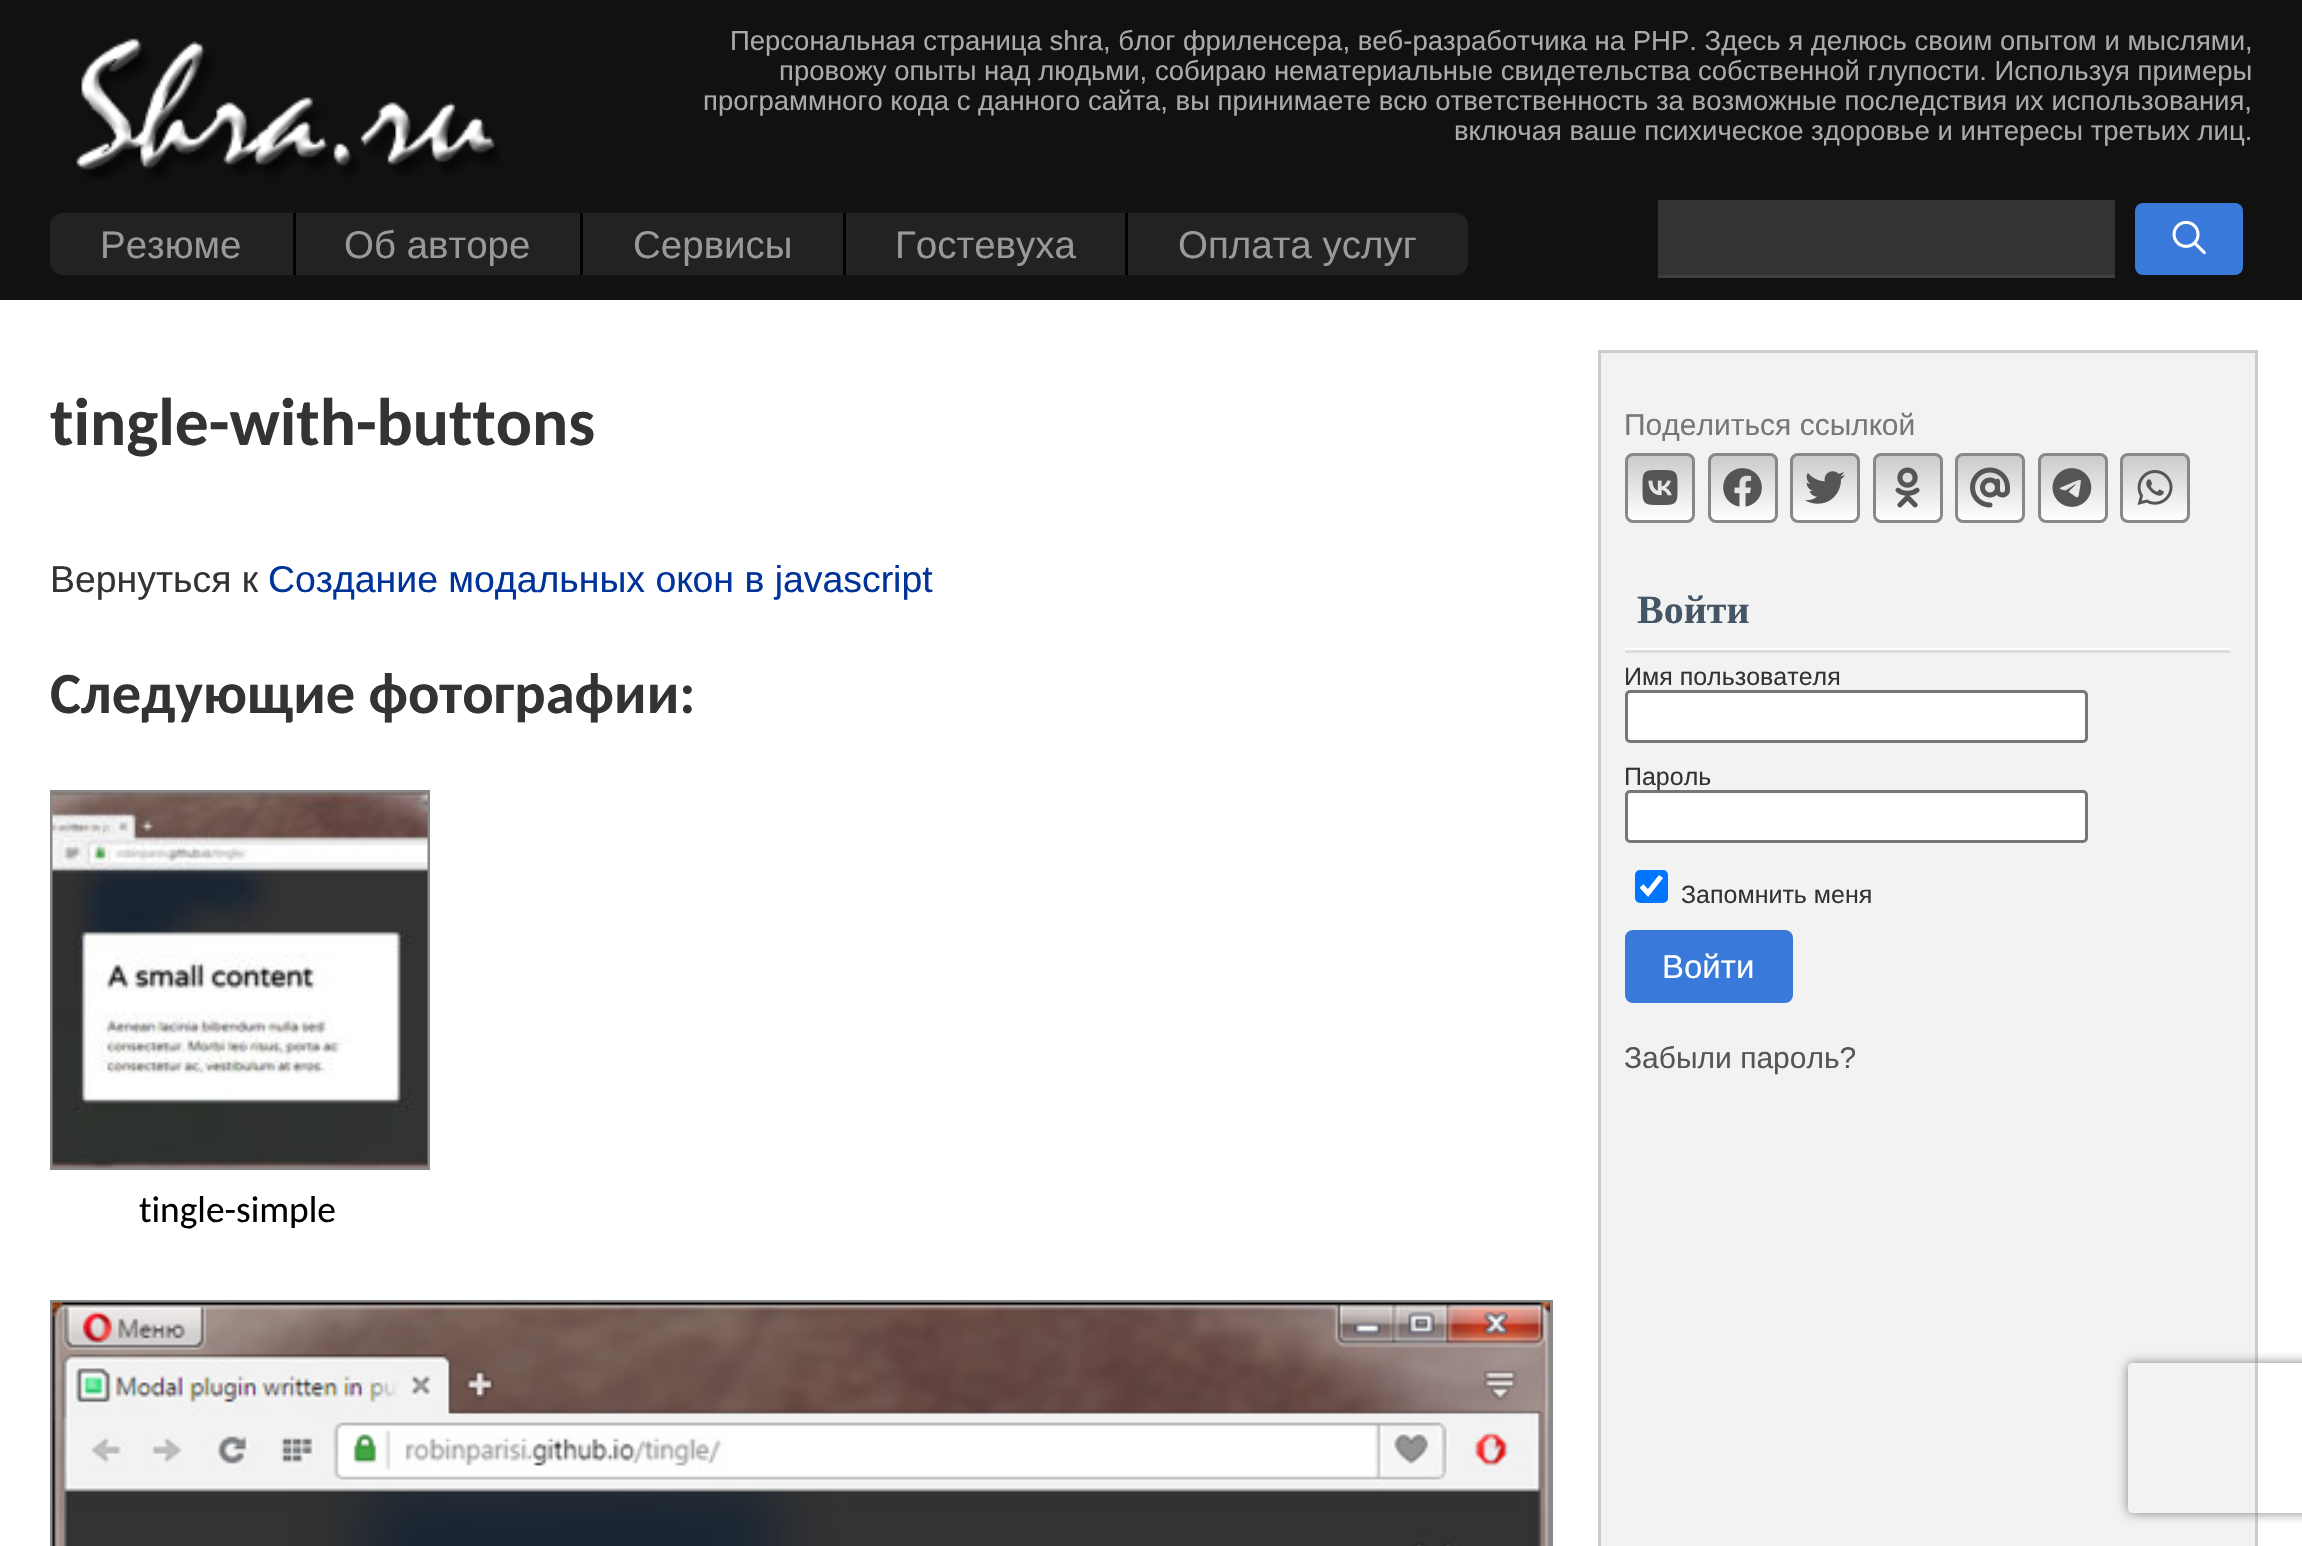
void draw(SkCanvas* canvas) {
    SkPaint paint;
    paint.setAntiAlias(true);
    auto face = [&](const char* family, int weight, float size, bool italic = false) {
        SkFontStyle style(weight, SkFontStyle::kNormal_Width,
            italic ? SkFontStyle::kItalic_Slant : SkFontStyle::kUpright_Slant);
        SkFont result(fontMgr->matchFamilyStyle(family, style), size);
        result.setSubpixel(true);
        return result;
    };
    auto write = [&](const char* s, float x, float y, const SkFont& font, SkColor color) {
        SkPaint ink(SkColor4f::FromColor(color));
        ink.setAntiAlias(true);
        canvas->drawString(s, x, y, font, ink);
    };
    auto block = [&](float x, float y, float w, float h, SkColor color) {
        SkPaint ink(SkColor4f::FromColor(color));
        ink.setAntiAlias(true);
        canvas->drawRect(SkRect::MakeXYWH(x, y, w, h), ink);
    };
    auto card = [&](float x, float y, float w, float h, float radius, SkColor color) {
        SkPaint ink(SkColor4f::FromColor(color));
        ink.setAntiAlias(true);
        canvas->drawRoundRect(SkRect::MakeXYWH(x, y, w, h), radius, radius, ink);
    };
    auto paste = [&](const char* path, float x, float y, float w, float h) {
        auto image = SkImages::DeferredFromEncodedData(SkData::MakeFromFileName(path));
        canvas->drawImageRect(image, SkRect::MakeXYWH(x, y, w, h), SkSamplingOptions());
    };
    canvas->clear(SK_ColorWHITE);
    block(0, 0, 2302, 300, SkColorSetRGB(17, 17, 17));
    paste("pic1.png", 76, 38, 424, 142);
    auto kFont1 = face("Liberation Sans", 400, 27.5f);
    write("Персональная страница shra, блог фриленсера, веб-разработчика на PHP. Здесь я делюсь своим опытом и мыслями,", 730, 50, kFont1, SkColorSetRGB(170, 170, 170));
    write("провожу опыты над людьми, собираю нематериальные свидетельства собственной глупости. Используя примеры", 779, 80, kFont1, SkColorSetRGB(170, 170, 170));
    write("программного кода с данного сайта, вы принимаете всю ответственность за возможные последствия их использования,", 703, 110, kFont1, SkColorSetRGB(170, 170, 170));
    write("включая ваше психическое здоровье и интересы третьих лиц.", 1454, 140, kFont1, SkColorSetRGB(170, 170, 170));
    card(50, 213, 1418, 62, 13, SkColorSetRGB(34, 34, 34));
    auto kFont2 = face("Liberation Sans", 400, 38.5f);
    write("Резюме", 100, 258, kFont2, SkColorSetRGB(153, 153, 153));
    block(293, 213, 3, 62, SK_ColorBLACK);
    write("Об авторе", 344, 258, kFont2, SkColorSetRGB(153, 153, 153));
    block(580, 213, 3, 62, SK_ColorBLACK);
    write("Cервисы", 633, 258, kFont2, SkColorSetRGB(153, 153, 153));
    block(843, 213, 3, 62, SK_ColorBLACK);
    write("Гостевуха", 895, 258, kFont2, SkColorSetRGB(153, 153, 153));
    block(1125, 213, 3, 62, SK_ColorBLACK);
    write("Оплата услуг", 1178, 258, kFont2, SkColorSetRGB(153, 153, 153));
    block(1658, 200, 457, 75, SkColorSetRGB(51, 51, 51));
    block(1658, 275, 457, 3, SkColorSetRGB(63, 63, 63));
    card(2135, 203, 108, 72, 8, SkColorSetRGB(56, 121, 217));
    paste("pic2.png", 2172, 220, 34, 35);
    auto kFont3 = face("Carlito", 700, 67.5f);
    write("tingle-with-buttons", 50, 445, kFont3, SkColorSetRGB(51, 51, 51));
    auto kFont4 = face("Liberation Sans", 400, 37.4f);
    write("Вернуться к", 50, 592, kFont4, SkColorSetRGB(51, 51, 51));
    write("Создание модальных окон в javascript", 268, 592, kFont4, SkColorSetRGB(0, 51, 153));
    auto kFont5 = face("Carlito", 700, 58.5f);
    write("Следующие фотографии:", 50, 713, kFont5, SkColorSetRGB(51, 51, 51));
    paint.setStyle(SkPaint::kStroke_Style);
    paint.setStrokeWidth(3);
    paint.setColor(SkColorSetRGB(136, 136, 136));
    canvas->drawRect(SkRect::MakeXYWH(51.5f, 791.5f, 377, 377), paint);
    paste("pic3.png", 52, 792, 376, 376);
    auto kFont6 = face("Carlito", 400, 37.4f);
    write("tingle-simple", 139, 1222, kFont6, SK_ColorBLACK);
    canvas->drawRect(SkRect::MakeXYWH(51.5f, 1301.5f, 1500, 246), paint);
    paste("pic4.png", 52, 1302, 1498, 244);
    paint.setStyle(SkPaint::kFill_Style);
    paint.setColor(SkColorSetRGB(242, 242, 242));
    canvas->drawRect(SkRect::MakeXYWH(1599.5f, 351.5f, 657, 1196), paint);
    paint.setStyle(SkPaint::kStroke_Style);
    paint.setColor(SkColorSetRGB(204, 204, 204));
    canvas->drawRect(SkRect::MakeXYWH(1599.5f, 351.5f, 657, 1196), paint);
    auto kFont7 = face("Liberation Sans", 400, 30);
    write("Поделиться ссылкой", 1624, 435, kFont7, SkColorSetRGB(119, 119, 119));
    canvas->save();
    canvas->clipPath(SkPathBuilder().moveTo(1633, 453).lineTo(1687, 453).cubicTo(1691.5f, 453, 1695, 456.5f, 1695, 461).lineTo(1695, 515).cubicTo(1695, 519.5f, 1691.5f, 523, 1687, 523).lineTo(1633, 523).cubicTo(1628.5f, 523, 1625, 519.5f, 1625, 515).lineTo(1625, 461).cubicTo(1625, 456.5f, 1628.5f, 453, 1633, 453).close().detach(), true);
    paint.setStyle(SkPaint::kFill_Style);
    {
        const SkColor colors[] = {SK_ColorWHITE, SkColorSetRGB(202, 202, 202)};
        const float stops[] = {0, 1};
        const SkPoint ends[] = {{1660, 520}, {1660, 455}};
        paint.setShader(SkGradientShader::MakeLinear(ends, colors, stops, 2, SkTileMode::kClamp));
        paint.setAlpha(255);
    }
    canvas->drawRect(SkRect::MakeXYWH(1625, 455, 70, 65), paint);
    canvas->restore();
    paint.setStyle(SkPaint::kStroke_Style);
    paint.setShader(nullptr);
    paint.setColor(SkColorSetRGB(136, 136, 136));
    canvas->drawRoundRect(SkRect::MakeXYWH(1626.5f, 454.5f, 67, 67), 6.5f, 6.5f, paint);
    paste("pic5.png", 1642, 470, 36, 35);
    canvas->save();
    canvas->clipPath(SkPathBuilder().moveTo(1716, 453).lineTo(1770, 453).cubicTo(1774.5f, 453, 1778, 456.5f, 1778, 461).lineTo(1778, 515).cubicTo(1778, 519.5f, 1774.5f, 523, 1770, 523).lineTo(1716, 523).cubicTo(1711.5f, 523, 1708, 519.5f, 1708, 515).lineTo(1708, 461).cubicTo(1708, 456.5f, 1711.5f, 453, 1716, 453).close().detach(), true);
    paint.setStyle(SkPaint::kFill_Style);
    {
        const SkColor colors[] = {SK_ColorWHITE, SkColorSetRGB(202, 202, 202)};
        const float stops[] = {0, 1};
        const SkPoint ends[] = {{1743, 520}, {1743, 455}};
        paint.setShader(SkGradientShader::MakeLinear(ends, colors, stops, 2, SkTileMode::kClamp));
        paint.setAlpha(255);
    }
    canvas->drawRect(SkRect::MakeXYWH(1708, 455, 70, 65), paint);
    canvas->restore();
    paint.setStyle(SkPaint::kStroke_Style);
    paint.setShader(nullptr);
    paint.setColor(SkColorSetRGB(136, 136, 136));
    canvas->drawRoundRect(SkRect::MakeXYWH(1709.5f, 454.5f, 67, 67), 6.5f, 6.5f, paint);
    paste("pic6.png", 1723, 468, 39, 39);
    canvas->save();
    canvas->clipPath(SkPathBuilder().moveTo(1798, 453).lineTo(1852, 453).cubicTo(1856.5f, 453, 1860, 456.5f, 1860, 461).lineTo(1860, 515).cubicTo(1860, 519.5f, 1856.5f, 523, 1852, 523).lineTo(1798, 523).cubicTo(1793.5f, 523, 1790, 519.5f, 1790, 515).lineTo(1790, 461).cubicTo(1790, 456.5f, 1793.5f, 453, 1798, 453).close().detach(), true);
    paint.setStyle(SkPaint::kFill_Style);
    {
        const SkColor colors[] = {SK_ColorWHITE, SkColorSetRGB(202, 202, 202)};
        const float stops[] = {0, 1};
        const SkPoint ends[] = {{1825, 520}, {1825, 455}};
        paint.setShader(SkGradientShader::MakeLinear(ends, colors, stops, 2, SkTileMode::kClamp));
        paint.setAlpha(255);
    }
    canvas->drawRect(SkRect::MakeXYWH(1790, 455, 70, 65), paint);
    canvas->restore();
    paint.setStyle(SkPaint::kStroke_Style);
    paint.setShader(nullptr);
    paint.setColor(SkColorSetRGB(136, 136, 136));
    canvas->drawRoundRect(SkRect::MakeXYWH(1791.5f, 454.5f, 67, 67), 6.5f, 6.5f, paint);
    paste("pic7.png", 1805, 471, 40, 33);
    canvas->save();
    canvas->clipPath(SkPathBuilder().moveTo(1881, 453).lineTo(1935, 453).cubicTo(1939.5f, 453, 1943, 456.5f, 1943, 461).lineTo(1943, 515).cubicTo(1943, 519.5f, 1939.5f, 523, 1935, 523).lineTo(1881, 523).cubicTo(1876.5f, 523, 1873, 519.5f, 1873, 515).lineTo(1873, 461).cubicTo(1873, 456.5f, 1876.5f, 453, 1881, 453).close().detach(), true);
    paint.setStyle(SkPaint::kFill_Style);
    {
        const SkColor colors[] = {SK_ColorWHITE, SkColorSetRGB(202, 202, 202)};
        const float stops[] = {0, 1};
        const SkPoint ends[] = {{1908, 520}, {1908, 455}};
        paint.setShader(SkGradientShader::MakeLinear(ends, colors, stops, 2, SkTileMode::kClamp));
        paint.setAlpha(255);
    }
    canvas->drawRect(SkRect::MakeXYWH(1873, 455, 70, 65), paint);
    canvas->restore();
    paint.setStyle(SkPaint::kStroke_Style);
    paint.setShader(nullptr);
    paint.setColor(SkColorSetRGB(136, 136, 136));
    canvas->drawRoundRect(SkRect::MakeXYWH(1874.5f, 454.5f, 67, 67), 6.5f, 6.5f, paint);
    paste("pic8.png", 1895, 467, 25, 41);
    canvas->save();
    canvas->clipPath(SkPathBuilder().moveTo(1963, 453).lineTo(2017, 453).cubicTo(2021.5f, 453, 2025, 456.5f, 2025, 461).lineTo(2025, 515).cubicTo(2025, 519.5f, 2021.5f, 523, 2017, 523).lineTo(1963, 523).cubicTo(1958.5f, 523, 1955, 519.5f, 1955, 515).lineTo(1955, 461).cubicTo(1955, 456.5f, 1958.5f, 453, 1963, 453).close().detach(), true);
    paint.setStyle(SkPaint::kFill_Style);
    {
        const SkColor colors[] = {SK_ColorWHITE, SkColorSetRGB(202, 202, 202)};
        const float stops[] = {0, 1};
        const SkPoint ends[] = {{1990, 520}, {1990, 455}};
        paint.setShader(SkGradientShader::MakeLinear(ends, colors, stops, 2, SkTileMode::kClamp));
        paint.setAlpha(255);
    }
    canvas->drawRect(SkRect::MakeXYWH(1955, 455, 70, 65), paint);
    canvas->restore();
    paint.setStyle(SkPaint::kStroke_Style);
    paint.setShader(nullptr);
    paint.setColor(SkColorSetRGB(136, 136, 136));
    canvas->drawRoundRect(SkRect::MakeXYWH(1956.5f, 454.5f, 67, 67), 6.5f, 6.5f, paint);
    paste("pic9.png", 1970, 467, 40, 41);
    canvas->save();
    canvas->clipPath(SkPathBuilder().moveTo(2046, 453).lineTo(2100, 453).cubicTo(2104.5f, 453, 2108, 456.5f, 2108, 461).lineTo(2108, 515).cubicTo(2108, 519.5f, 2104.5f, 523, 2100, 523).lineTo(2046, 523).cubicTo(2041.5f, 523, 2038, 519.5f, 2038, 515).lineTo(2038, 461).cubicTo(2038, 456.5f, 2041.5f, 453, 2046, 453).close().detach(), true);
    paint.setStyle(SkPaint::kFill_Style);
    {
        const SkColor colors[] = {SK_ColorWHITE, SkColorSetRGB(202, 202, 202)};
        const float stops[] = {0, 1};
        const SkPoint ends[] = {{2073, 520}, {2073, 455}};
        paint.setShader(SkGradientShader::MakeLinear(ends, colors, stops, 2, SkTileMode::kClamp));
        paint.setAlpha(255);
    }
    canvas->drawRect(SkRect::MakeXYWH(2038, 455, 70, 65), paint);
    canvas->restore();
    paint.setStyle(SkPaint::kStroke_Style);
    paint.setShader(nullptr);
    paint.setColor(SkColorSetRGB(136, 136, 136));
    canvas->drawRoundRect(SkRect::MakeXYWH(2039.5f, 454.5f, 67, 67), 6.5f, 6.5f, paint);
    paste("pic10.png", 2052, 468, 40, 39);
    canvas->save();
    canvas->clipPath(SkPathBuilder().moveTo(2128, 453).lineTo(2182, 453).cubicTo(2186.5f, 453, 2190, 456.5f, 2190, 461).lineTo(2190, 515).cubicTo(2190, 519.5f, 2186.5f, 523, 2182, 523).lineTo(2128, 523).cubicTo(2123.5f, 523, 2120, 519.5f, 2120, 515).lineTo(2120, 461).cubicTo(2120, 456.5f, 2123.5f, 453, 2128, 453).close().detach(), true);
    paint.setStyle(SkPaint::kFill_Style);
    {
        const SkColor colors[] = {SK_ColorWHITE, SkColorSetRGB(202, 202, 202)};
        const float stops[] = {0, 1};
        const SkPoint ends[] = {{2155, 520}, {2155, 455}};
        paint.setShader(SkGradientShader::MakeLinear(ends, colors, stops, 2, SkTileMode::kClamp));
        paint.setAlpha(255);
    }
    canvas->drawRect(SkRect::MakeXYWH(2120, 455, 70, 65), paint);
    canvas->restore();
    paint.setStyle(SkPaint::kStroke_Style);
    paint.setShader(nullptr);
    paint.setColor(SkColorSetRGB(136, 136, 136));
    canvas->drawRoundRect(SkRect::MakeXYWH(2121.5f, 454.5f, 67, 67), 6.5f, 6.5f, paint);
    paste("pic11.png", 2137, 470, 36, 35);
    block(1625, 648, 605, 2, SK_ColorWHITE);
    auto kFont8 = face("Liberation Serif", 700, 40);
    write("Войти", 1637, 623, kFont8, SkColorSetRGB(68, 85, 102));
    block(1625, 650, 605, 3, SkColorSetRGB(221, 221, 221));
    auto kFont9 = face("Liberation Sans", 400, 25);
    write("Имя пользователя", 1624, 685, kFont9, SkColorSetRGB(51, 51, 51));
    paint.setStyle(SkPaint::kFill_Style);
    paint.setColor(SK_ColorWHITE);
    canvas->drawRoundRect(SkRect::MakeXYWH(1626.5f, 691.5f, 460, 50), 3.5f, 3.5f, paint);
    paint.setStyle(SkPaint::kStroke_Style);
    paint.setColor(SkColorSetRGB(118, 118, 118));
    canvas->drawRoundRect(SkRect::MakeXYWH(1626.5f, 691.5f, 460, 50), 3.5f, 3.5f, paint);
    write("Пароль", 1624, 785, kFont9, SkColorSetRGB(51, 51, 51));
    paint.setStyle(SkPaint::kFill_Style);
    paint.setColor(SK_ColorWHITE);
    canvas->drawRoundRect(SkRect::MakeXYWH(1626.5f, 791.5f, 460, 50), 3.5f, 3.5f, paint);
    paint.setStyle(SkPaint::kStroke_Style);
    paint.setColor(SkColorSetRGB(118, 118, 118));
    canvas->drawRoundRect(SkRect::MakeXYWH(1626.5f, 791.5f, 460, 50), 3.5f, 3.5f, paint);
    card(1635, 870, 33, 33, 5, SkColorSetRGB(0, 117, 255));
    paint.setStrokeWidth(5.2f);
    paint.setColor(SK_ColorWHITE);
    canvas->drawPath(SkPathBuilder().moveTo(1641.5f, 886).lineTo(1648, 893).lineTo(1661, 876.5f).detach(), paint);
    write("Запомнить меня", 1681, 903, kFont9, SkColorSetRGB(51, 51, 51));
    card(1625, 930, 168, 73, 8, SkColorSetRGB(56, 121, 217));
    auto kFont10 = face("Liberation Sans", 400, 33);
    write("Войти", 1662, 978, kFont10, SK_ColorWHITE);
    canvas->save();
    canvas->clipPath(SkPathBuilder(SkPathFillType::kEvenOdd).moveTo(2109, 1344).lineTo(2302, 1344).lineTo(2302, 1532).lineTo(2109, 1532).close().moveTo(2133, 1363).lineTo(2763, 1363).cubicTo(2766, 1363, 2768, 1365, 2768, 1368).lineTo(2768, 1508).cubicTo(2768, 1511, 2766, 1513, 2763, 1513).lineTo(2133, 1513).cubicTo(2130, 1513, 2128, 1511, 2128, 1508).lineTo(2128, 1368).cubicTo(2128, 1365, 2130, 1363, 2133, 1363).close().detach(), true);
    paint.setStyle(SkPaint::kFill_Style);
    paint.setColor(SkColorSetRGB(128, 128, 128));
    paint.setMaskFilter(SkMaskFilter::MakeBlur(kNormal_SkBlurStyle, 6));
    canvas->drawRoundRect(SkRect::MakeXYWH(2128, 1363, 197, 150), 5, 5, paint);
    paint.setMaskFilter(nullptr);
    canvas->restore();
    write("Забыли пароль?", 1624, 1068, kFont7, SkColorSetRGB(85, 85, 85));
}
